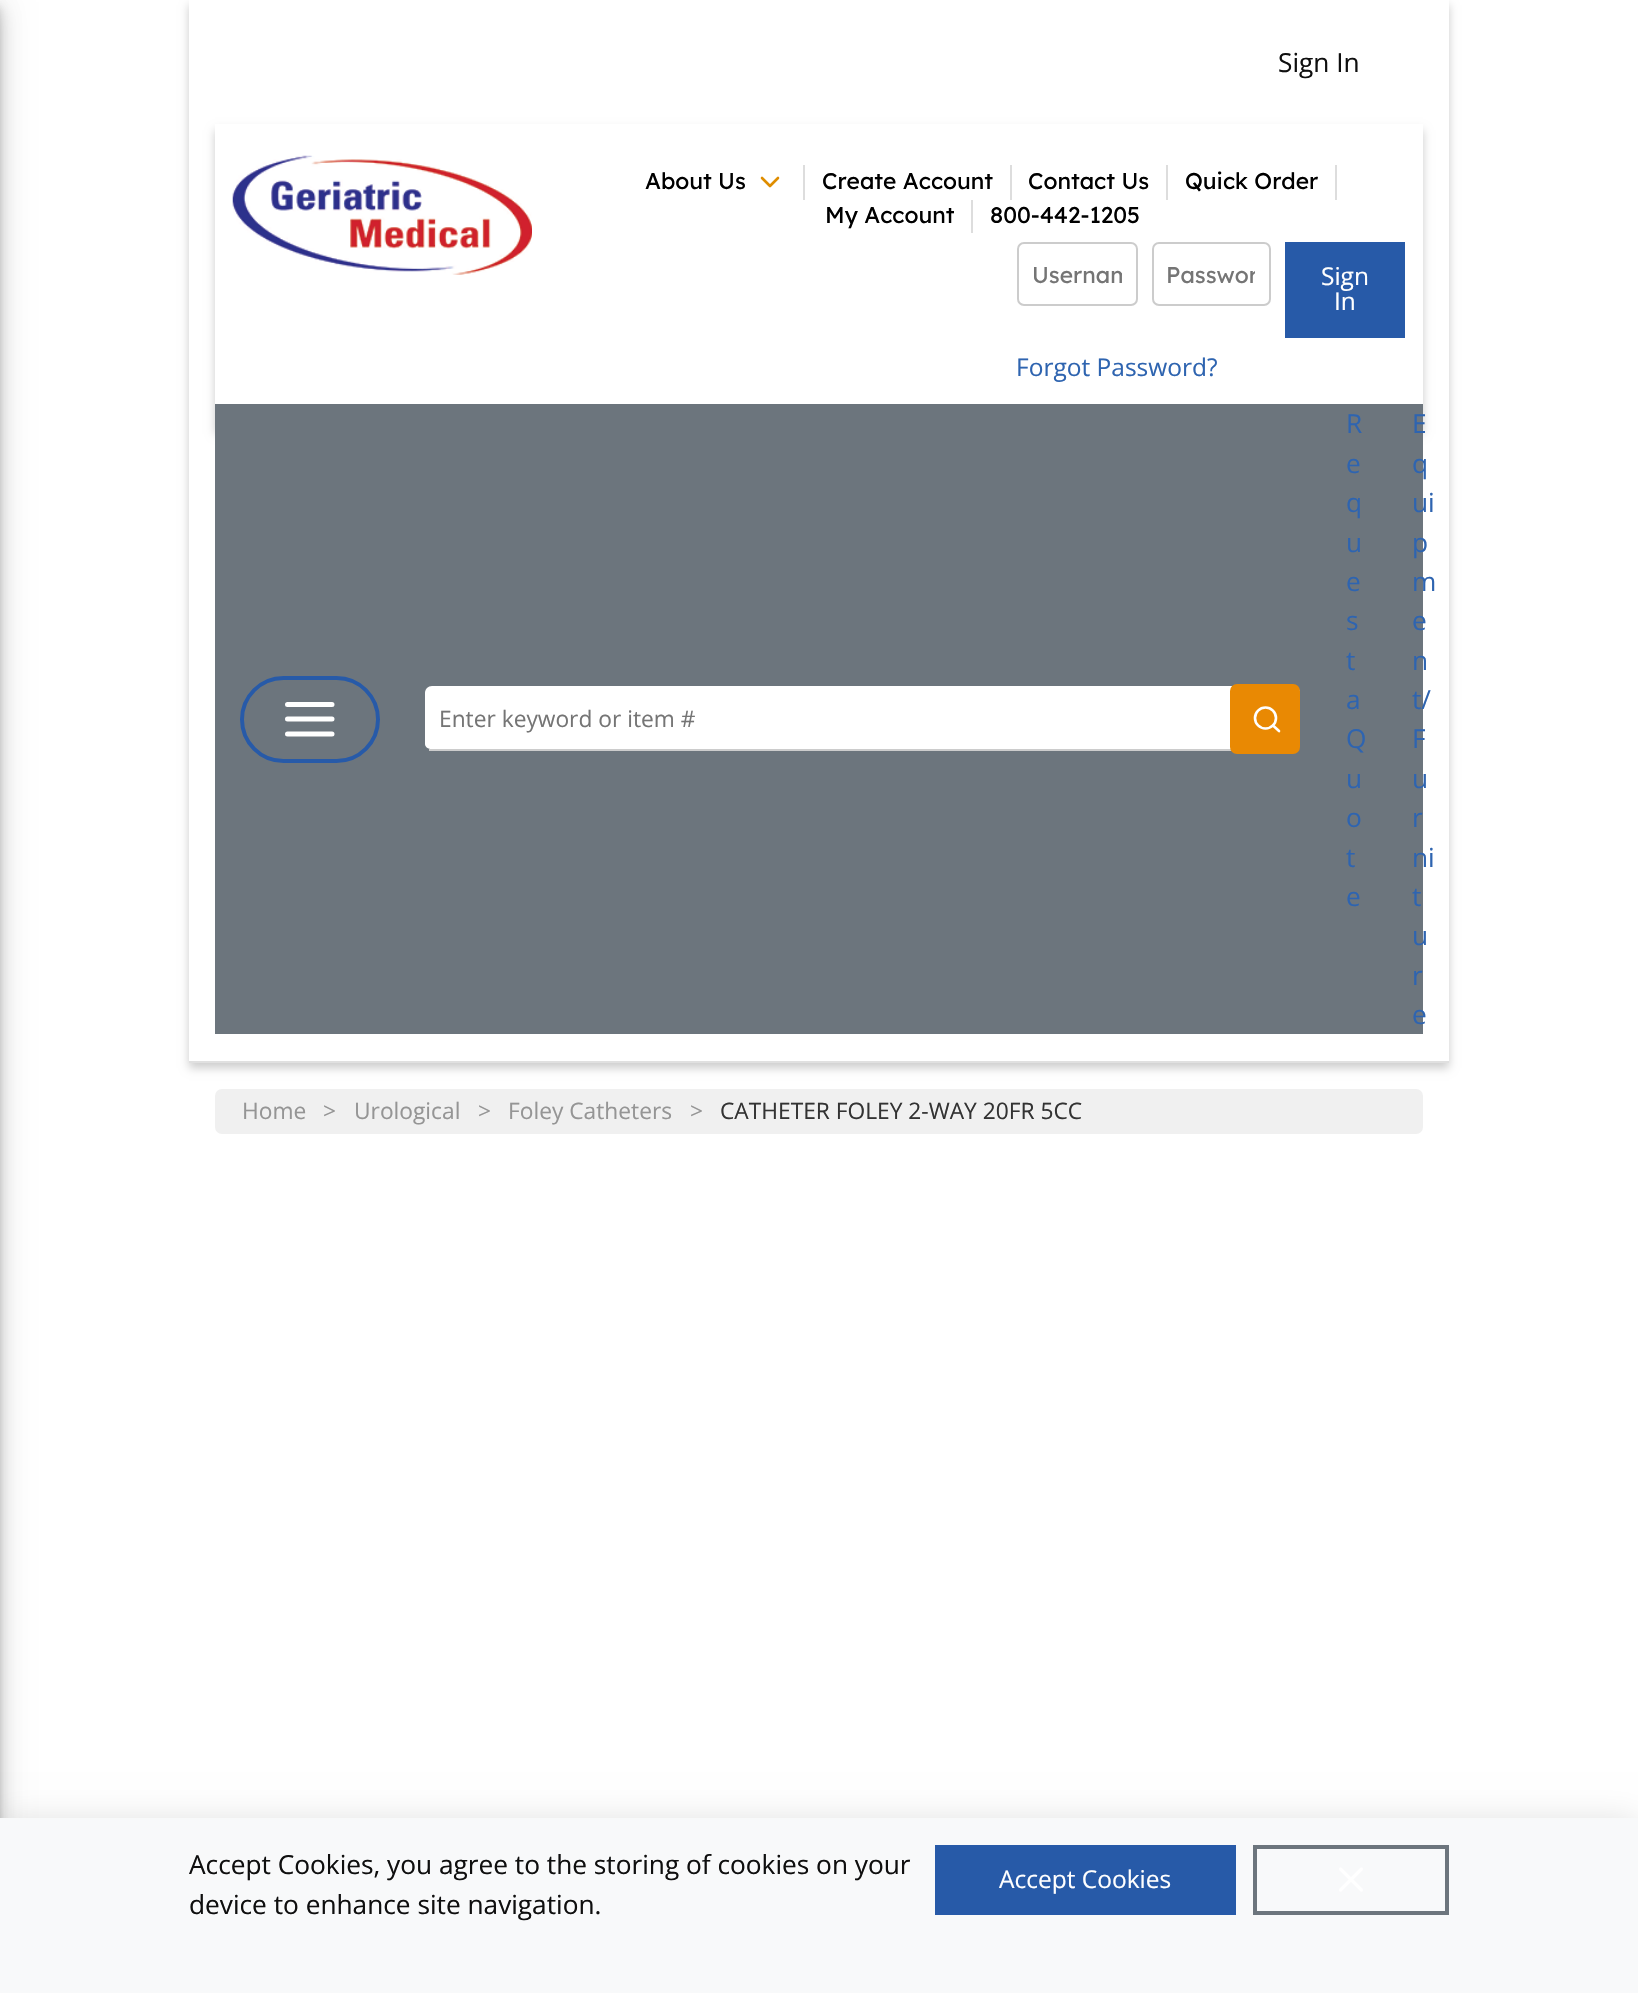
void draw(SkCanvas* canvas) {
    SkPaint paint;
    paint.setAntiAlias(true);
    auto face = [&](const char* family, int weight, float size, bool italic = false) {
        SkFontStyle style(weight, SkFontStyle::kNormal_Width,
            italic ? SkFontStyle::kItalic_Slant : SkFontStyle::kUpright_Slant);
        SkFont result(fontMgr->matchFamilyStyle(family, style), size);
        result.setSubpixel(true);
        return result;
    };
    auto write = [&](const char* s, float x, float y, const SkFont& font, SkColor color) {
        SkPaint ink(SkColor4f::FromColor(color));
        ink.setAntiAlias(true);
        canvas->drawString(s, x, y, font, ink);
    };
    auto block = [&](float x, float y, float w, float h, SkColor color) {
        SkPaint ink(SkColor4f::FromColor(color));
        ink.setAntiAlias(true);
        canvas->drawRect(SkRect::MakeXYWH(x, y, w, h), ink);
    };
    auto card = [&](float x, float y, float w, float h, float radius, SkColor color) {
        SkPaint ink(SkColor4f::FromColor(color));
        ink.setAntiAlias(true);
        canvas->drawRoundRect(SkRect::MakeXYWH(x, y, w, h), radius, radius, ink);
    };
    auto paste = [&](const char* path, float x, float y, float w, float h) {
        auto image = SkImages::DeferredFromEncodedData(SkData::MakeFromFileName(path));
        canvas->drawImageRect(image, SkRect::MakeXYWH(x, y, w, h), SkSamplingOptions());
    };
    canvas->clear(SK_ColorWHITE);
    canvas->save();
    canvas->clipPath(SkPathBuilder(SkPathFillType::kEvenOdd).moveTo(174, 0).lineTo(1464, 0).lineTo(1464, 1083).lineTo(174, 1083).close().moveTo(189, 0).lineTo(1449, 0).lineTo(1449, 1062).lineTo(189, 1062).close().detach(), true);
    paint.setColor(SkColorSetARGB(51, 0, 0, 0));
    paint.setMaskFilter(SkMaskFilter::MakeBlur(kNormal_SkBlurStyle, 4.5f));
    canvas->drawRect(SkRect::MakeXYWH(189, 5, 1260, 1063), paint);
    paint.setMaskFilter(nullptr);
    canvas->restore();
    block(189, 1061, 1260, 2, SkColorSetRGB(224, 224, 224));
    auto kFont1 = face("Open Sans", 400, 26.25f);
    write("Sign In", 1278, 72, kFont1, SkColorSetRGB(15, 15, 15));
    canvas->save();
    canvas->clipPath(SkPathBuilder(SkPathFillType::kEvenOdd).moveTo(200, 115).lineTo(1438, 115).lineTo(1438, 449).lineTo(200, 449).close().moveTo(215, 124).lineTo(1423, 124).lineTo(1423, 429).lineTo(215, 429).close().detach(), true);
    paint.setMaskFilter(SkMaskFilter::MakeBlur(kNormal_SkBlurStyle, 4.5f));
    canvas->drawRect(SkRect::MakeXYWH(215, 130, 1208, 304), paint);
    paint.setMaskFilter(nullptr);
    canvas->restore();
    paste("pic1.png", 232, 155, 300, 120);
    block(803, 165, 2, 35, SkColorSetRGB(221, 221, 221));
    auto kFont2 = face("Lexend Deca", 400, 22.75f);
    write("About Us", 645, 189, kFont2, SK_ColorBLACK);
    paint.setStyle(SkPaint::kStroke_Style);
    paint.setStrokeWidth(2.6f);
    paint.setStrokeCap(SkPaint::kRound_Cap);
    paint.setStrokeJoin(SkPaint::kRound_Join);
    paint.setColor(SkColorSetRGB(223, 141, 0));
    canvas->drawPath(SkPathBuilder().moveTo(762, 178).lineTo(770, 186).lineTo(778, 178).detach(), paint);
    block(1010, 165, 2, 35, SkColorSetRGB(221, 221, 221));
    write("Create Account", 822, 189, kFont2, SK_ColorBLACK);
    block(1166, 165, 2, 35, SkColorSetRGB(221, 221, 221));
    write("Contact Us", 1028, 189, kFont2, SK_ColorBLACK);
    block(1335, 165, 2, 35, SkColorSetRGB(221, 221, 221));
    write("Quick Order", 1185, 189, kFont2, SK_ColorBLACK);
    block(971, 200, 2, 33, SkColorSetRGB(221, 221, 221));
    write("My Account", 825, 223, kFont2, SK_ColorBLACK);
    write("800-442-1205", 990, 223, kFont2, SK_ColorBLACK);
    paint.setStrokeWidth(2);
    paint.setStrokeCap(SkPaint::kButt_Cap);
    paint.setStrokeJoin(SkPaint::kMiter_Join);
    paint.setColor(SkColorSetRGB(204, 204, 204));
    canvas->drawRoundRect(SkRect::MakeXYWH(1018, 243, 119, 62), 6, 6, paint);
    canvas->save();
    canvas->clipRect(SkRect::MakeXYWH(1033, 261, 89, 28));
    write("Usernam", 1032, 283, kFont2, SkColorSetRGB(117, 117, 117));
    canvas->restore();
    canvas->drawRoundRect(SkRect::MakeXYWH(1153, 243, 117, 62), 6, 6, paint);
    canvas->save();
    canvas->clipRect(SkRect::MakeXYWH(1167, 261, 88, 28));
    write("Passwor", 1166, 283, kFont2, SkColorSetRGB(117, 117, 117));
    canvas->restore();
    block(1285, 242, 120, 96, SkColorSetRGB(39, 90, 168));
    auto kFont3 = face("Open Sans", 400, 24.5f);
    write("Sign", 1321, 285, kFont3, SK_ColorWHITE);
    write("In", 1334, 310, kFont3, SK_ColorWHITE);
    write("Forgot Password?", 1016, 376, kFont3, SkColorSetRGB(46, 100, 176));
    block(215, 404, 1208, 630, SkColorSetRGB(108, 117, 125));
    paint.setStyle(SkPaint::kFill_Style);
    paint.setColor(SkColorSetARGB(31, 0, 0, 0));
    paint.setMaskFilter(SkMaskFilter::MakeBlur(kNormal_SkBlurStyle, 16));
    canvas->drawRect(SkRect::MakeXYWH(-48, 2, 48, 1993), paint);
    paint.setMaskFilter(nullptr);
    paint.setColor(SkColorSetARGB(36, 0, 0, 0));
    paint.setMaskFilter(SkMaskFilter::MakeBlur(kNormal_SkBlurStyle, 9));
    canvas->drawRect(SkRect::MakeXYWH(-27, 11, 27, 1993), paint);
    paint.setMaskFilter(nullptr);
    paint.setColor(SkColorSetARGB(51, 0, 0, 0));
    paint.setMaskFilter(SkMaskFilter::MakeBlur(kNormal_SkBlurStyle, 4.5f));
    canvas->drawRect(SkRect::MakeXYWH(-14, 7, 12, 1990), paint);
    paint.setMaskFilter(nullptr);
    paint.setStyle(SkPaint::kStroke_Style);
    paint.setStrokeWidth(4);
    paint.setColor(SkColorSetRGB(39, 90, 168));
    canvas->drawRoundRect(SkRect::MakeXYWH(242, 678, 136, 83), 41.5f, 41.5f, paint);
    paint.setStrokeWidth(5);
    paint.setStrokeCap(SkPaint::kRound_Cap);
    paint.setStrokeJoin(SkPaint::kRound_Join);
    paint.setColor(SK_ColorWHITE);
    canvas->drawPath(SkPathBuilder().moveTo(287.5f, 719).lineTo(332, 719).moveTo(287.5f, 704.5f).lineTo(332, 704.5f).moveTo(287.5f, 734).lineTo(332, 734).detach(), paint);
    paint.setStyle(SkPaint::kFill_Style);
    canvas->drawPath(SkPathBuilder().moveTo(432, 686).lineTo(1293, 686).cubicTo(1297, 686, 1300, 689, 1300, 693).lineTo(1300, 744).cubicTo(1300, 747, 1297, 749, 1293, 749).lineTo(432, 749).cubicTo(428, 749, 425, 747, 425, 744).lineTo(425, 693).cubicTo(425, 689, 428, 686, 432, 686).close().detach(), paint);
    block(429, 749, 803, 2, SkColorSetRGB(204, 204, 204));
    auto kFont4 = face("Open Sans", 400, 22.75f);
    write("Enter keyword or item #", 439, 727, kFont4, SkColorSetRGB(117, 117, 117));
    card(1230, 684, 70, 70, 7, SkColorSetRGB(233, 137, 3));
    paint.setStyle(SkPaint::kStroke_Style);
    paint.setStrokeWidth(2.6f);
    paint.setStrokeCap(SkPaint::kButt_Cap);
    paint.setStrokeJoin(SkPaint::kMiter_Join);
    canvas->drawCircle(1265.5f, 718, 10.5f, paint);
    paint.setStrokeCap(SkPaint::kRound_Cap);
    paint.setStrokeJoin(SkPaint::kRound_Join);
    canvas->drawPath(SkPathBuilder().moveTo(1279, 731).lineTo(1273, 725.5f).detach(), paint);
    write("R", 1346, 433, kFont1, SkColorSetRGB(46, 100, 176));
    write("e", 1346, 473, kFont1, SkColorSetRGB(46, 100, 176));
    write("q", 1346, 512, kFont1, SkColorSetRGB(46, 100, 176));
    write("u", 1346, 552, kFont1, SkColorSetRGB(46, 100, 176));
    write("e", 1346, 591, kFont1, SkColorSetRGB(46, 100, 176));
    write("s", 1346, 630, kFont1, SkColorSetRGB(46, 100, 176));
    write("t", 1346, 670, kFont1, SkColorSetRGB(46, 100, 176));
    write("a", 1346, 709, kFont1, SkColorSetRGB(46, 100, 176));
    write("Q", 1346, 748, kFont1, SkColorSetRGB(46, 100, 176));
    write("u", 1346, 788, kFont1, SkColorSetRGB(46, 100, 176));
    write("o", 1346, 827, kFont1, SkColorSetRGB(46, 100, 176));
    write("t", 1346, 867, kFont1, SkColorSetRGB(46, 100, 176));
    write("e", 1346, 906, kFont1, SkColorSetRGB(46, 100, 176));
    write("E", 1412, 433, kFont1, SkColorSetRGB(46, 100, 176));
    write("q", 1412, 473, kFont1, SkColorSetRGB(46, 100, 176));
    write("ui", 1412, 512, kFont1, SkColorSetRGB(46, 100, 176));
    write("p", 1412, 552, kFont1, SkColorSetRGB(46, 100, 176));
    write("m", 1412, 591, kFont1, SkColorSetRGB(46, 100, 176));
    write("e", 1412, 630, kFont1, SkColorSetRGB(46, 100, 176));
    write("n", 1412, 670, kFont1, SkColorSetRGB(46, 100, 176));
    write("t/", 1412, 709, kFont1, SkColorSetRGB(46, 100, 176));
    write("F", 1412, 748, kFont1, SkColorSetRGB(46, 100, 176));
    write("u", 1412, 788, kFont1, SkColorSetRGB(46, 100, 176));
    write("r", 1412, 827, kFont1, SkColorSetRGB(46, 100, 176));
    write("ni", 1412, 867, kFont1, SkColorSetRGB(46, 100, 176));
    write("t", 1412, 906, kFont1, SkColorSetRGB(46, 100, 176));
    write("u", 1412, 945, kFont1, SkColorSetRGB(46, 100, 176));
    write("r", 1412, 985, kFont1, SkColorSetRGB(46, 100, 176));
    write("e", 1412, 1024, kFont1, SkColorSetRGB(46, 100, 176));
    card(215, 1089, 1208, 45, 7, SkColorSetRGB(240, 240, 240));
    write("Home", 242, 1119, kFont4, SkColorSetRGB(149, 149, 149));
    write(">", 323, 1119, kFont4, SkColorSetRGB(149, 149, 149));
    write("Urological", 354, 1119, kFont4, SkColorSetRGB(149, 149, 149));
    write(">", 478, 1119, kFont4, SkColorSetRGB(149, 149, 149));
    write("Foley Catheters", 508, 1119, kFont4, SkColorSetRGB(149, 149, 149));
    write(">", 690, 1119, kFont4, SkColorSetRGB(149, 149, 149));
    write("CATHETER FOLEY 2-WAY 20FR 5CC", 720, 1119, kFont4, SkColorSetRGB(51, 51, 51));
    paint.setStyle(SkPaint::kFill_Style);
    paint.setColor(SkColorSetARGB(31, 0, 0, 0));
    paint.setMaskFilter(SkMaskFilter::MakeBlur(kNormal_SkBlurStyle, 16));
    canvas->drawRect(SkRect::MakeXYWH(0, 1820, 1638, 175), paint);
    paint.setMaskFilter(nullptr);
    block(0, 1818, 1638, 175, SkColorSetRGB(248, 249, 250));
    write("Accept Cookies, you agree to the storing of cookies on your", 189, 1874, kFont1, SkColorSetRGB(15, 15, 15));
    write("device to enhance site navigation.", 189, 1914, kFont1, SkColorSetRGB(15, 15, 15));
    block(935, 1845, 301, 70, SkColorSetRGB(39, 90, 168));
    write("Accept Cookies", 999, 1888, kFont3, SK_ColorWHITE);
    paint.setStyle(SkPaint::kStroke_Style);
    paint.setStrokeWidth(4);
    paint.setStrokeCap(SkPaint::kButt_Cap);
    paint.setStrokeJoin(SkPaint::kMiter_Join);
    paint.setColor(SkColorSetRGB(108, 117, 125));
    canvas->drawRect(SkRect::MakeXYWH(1255, 1847, 192, 66), paint);
    paint.setStrokeWidth(3.5f);
    paint.setStrokeCap(SkPaint::kRound_Cap);
    paint.setStrokeJoin(SkPaint::kRound_Join);
    paint.setColor(SK_ColorWHITE);
    canvas->drawPath(SkPathBuilder().moveTo(1361.5f, 1869).lineTo(1340.5f, 1890).moveTo(1340.5f, 1869).lineTo(1361.5f, 1890).detach(), paint);
}
